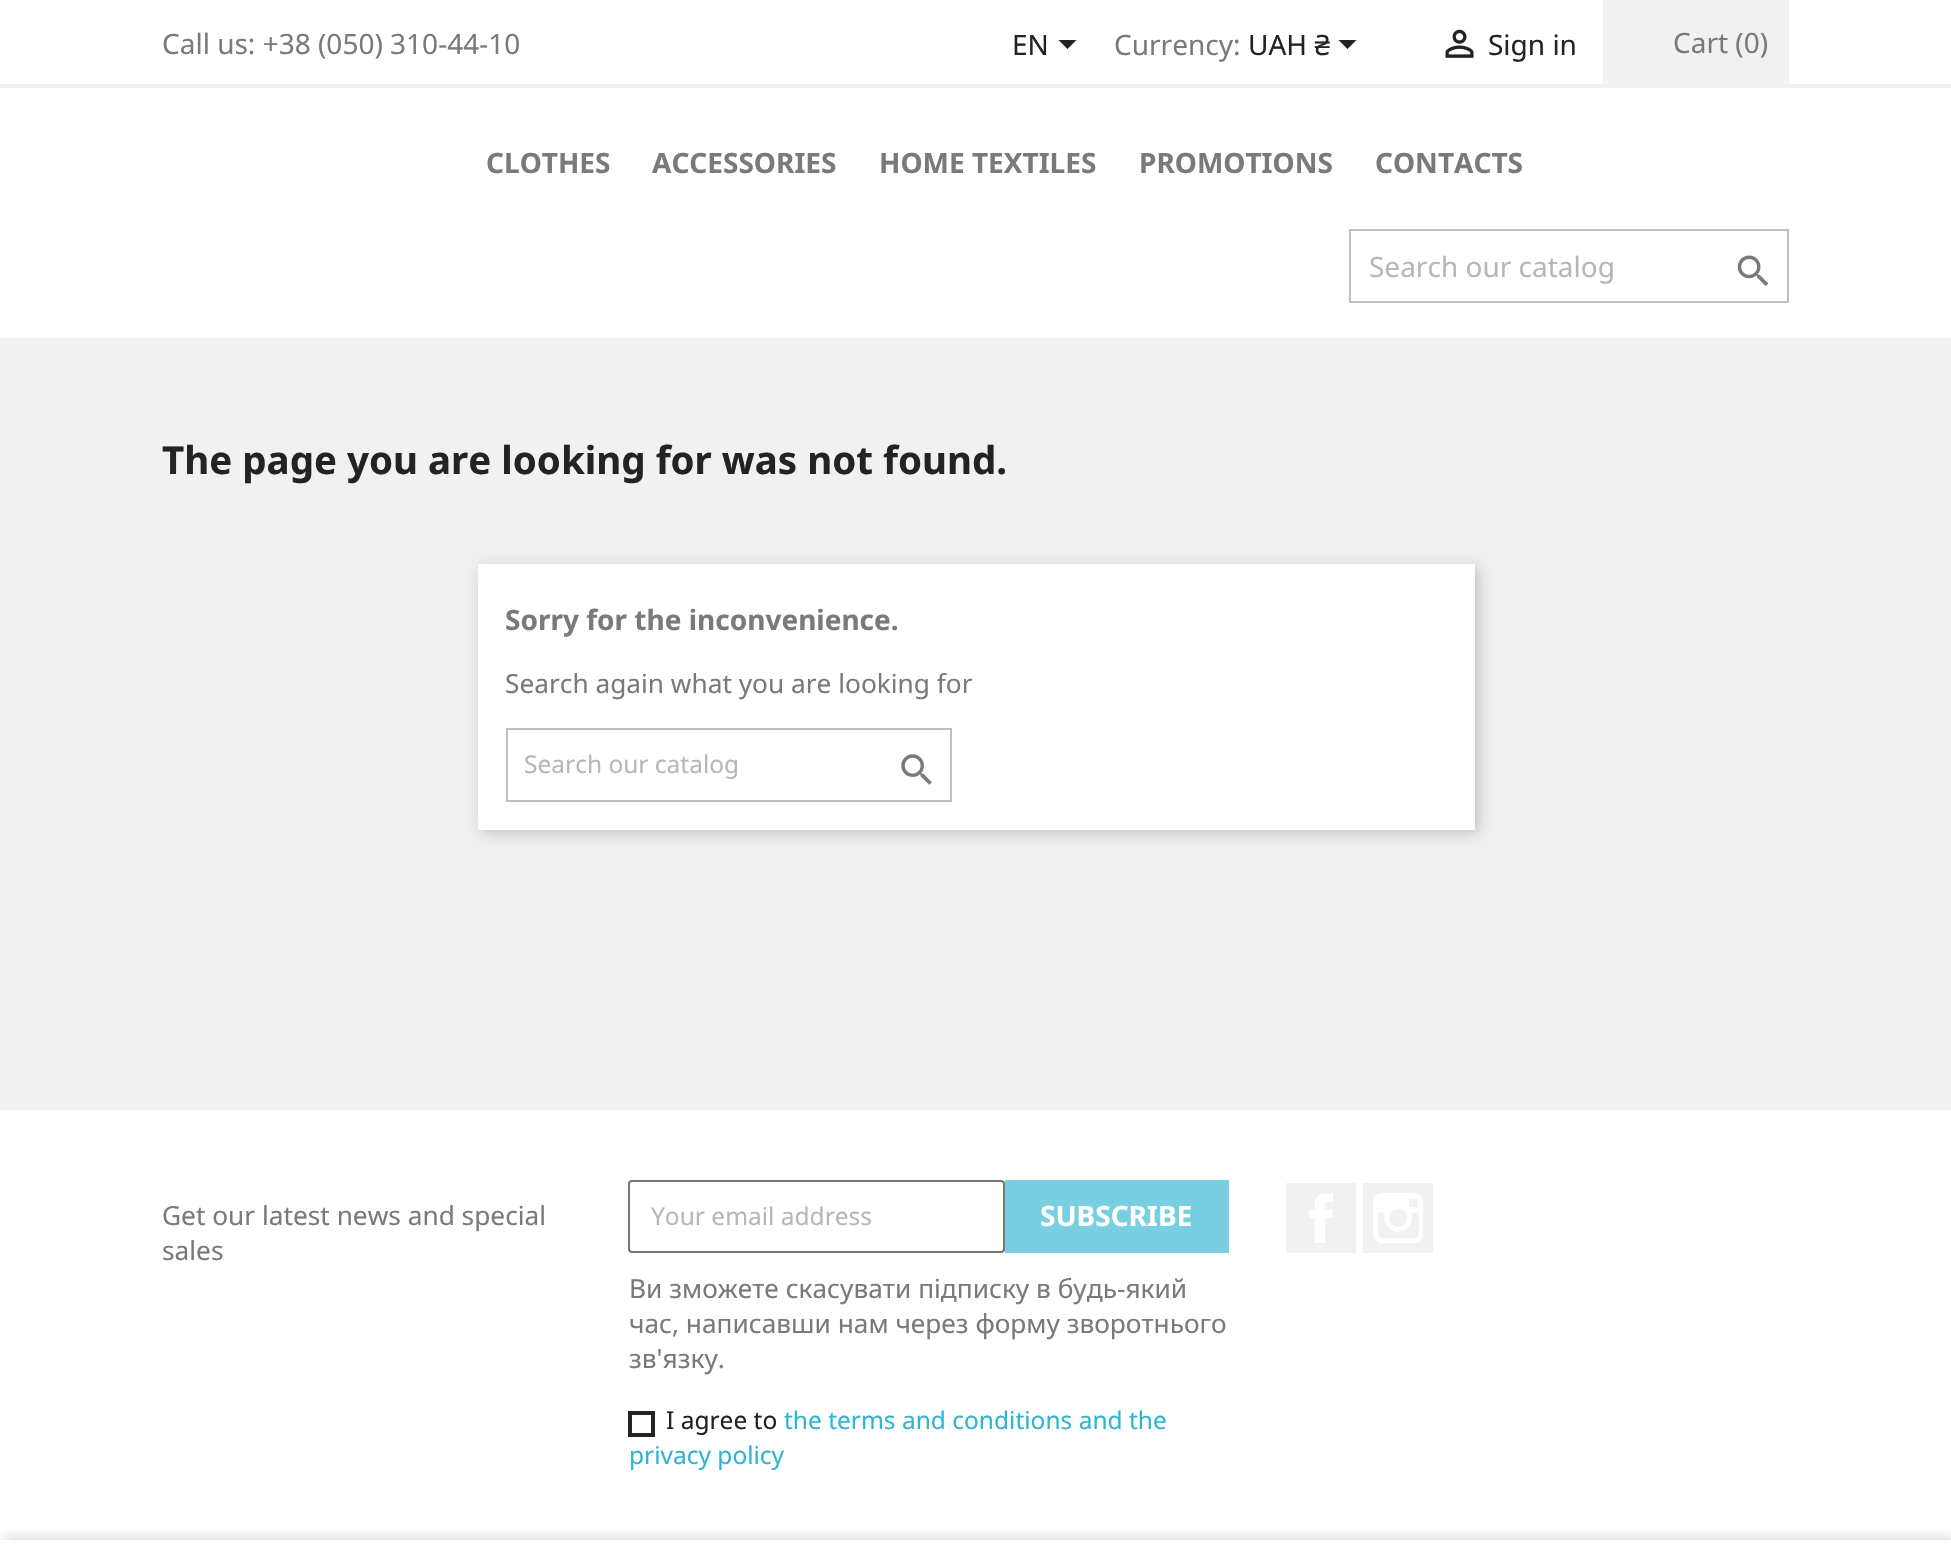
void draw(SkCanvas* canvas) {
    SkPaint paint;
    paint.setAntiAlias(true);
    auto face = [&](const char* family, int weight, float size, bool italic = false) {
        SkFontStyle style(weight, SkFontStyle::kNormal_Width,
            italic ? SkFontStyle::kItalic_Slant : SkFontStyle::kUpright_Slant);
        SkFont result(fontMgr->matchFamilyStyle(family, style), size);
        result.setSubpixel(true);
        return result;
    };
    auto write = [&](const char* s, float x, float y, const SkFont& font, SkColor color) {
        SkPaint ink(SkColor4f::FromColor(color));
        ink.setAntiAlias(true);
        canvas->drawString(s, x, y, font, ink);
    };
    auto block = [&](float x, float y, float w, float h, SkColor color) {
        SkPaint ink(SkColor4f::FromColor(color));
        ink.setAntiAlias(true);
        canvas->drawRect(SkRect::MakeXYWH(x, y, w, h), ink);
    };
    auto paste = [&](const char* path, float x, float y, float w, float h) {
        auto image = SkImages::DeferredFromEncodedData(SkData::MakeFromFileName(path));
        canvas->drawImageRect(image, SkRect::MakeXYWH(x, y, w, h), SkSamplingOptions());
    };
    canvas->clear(SK_ColorWHITE);
    block(0, 84, 1951, 4, SkColorSetRGB(241, 241, 241));
    auto kFont1 = face("Noto Sans", 400, 28);
    write("Call us: +38 (050) 310-44-10", 162, 54, kFont1, SkColorSetRGB(122, 122, 122));
    write("EN", 1012, 55, kFont1, SkColorSetRGB(35, 35, 35));
    paint.setColor(SkColorSetRGB(35, 35, 35));
    canvas->drawPath(SkPathBuilder().moveTo(1058.5f, 40).lineTo(1076.5f, 40).lineTo(1067.5f, 49).close().detach(), paint);
    write("Currency:", 1114, 55, kFont1, SkColorSetRGB(122, 122, 122));
    write("UAH ₴", 1248, 55, kFont1, SkColorSetRGB(35, 35, 35));
    canvas->drawPath(SkPathBuilder().moveTo(1338.5f, 40).lineTo(1356.5f, 40).lineTo(1347.5f, 49).close().detach(), paint);
    paste("pic1.png", 1445, 29, 29, 29);
    write("Sign in", 1488, 55, kFont1, SkColorSetRGB(35, 35, 35));
    block(1603, 0, 186, 84, SkColorSetRGB(241, 241, 241));
    write("Cart (0)", 1673, 53, kFont1, SkColorSetRGB(122, 122, 122));
    auto kFont2 = face("Noto Sans", 700, 28);
    write("CLOTHES", 486, 173, kFont2, SkColorSetRGB(122, 122, 122));
    write("ACCESSORIES", 652, 173, kFont2, SkColorSetRGB(122, 122, 122));
    write("HOME TEXTILES", 879, 173, kFont2, SkColorSetRGB(122, 122, 122));
    write("PROMOTIONS", 1139, 173, kFont2, SkColorSetRGB(122, 122, 122));
    write("CONTACTS", 1375, 173, kFont2, SkColorSetRGB(122, 122, 122));
    paint.setStyle(SkPaint::kStroke_Style);
    paint.setStrokeWidth(2);
    paint.setColor(SkColorSetRGB(191, 191, 191));
    canvas->drawRect(SkRect::MakeXYWH(1350, 230, 438, 72), paint);
    write("Search our catalog", 1369, 277, kFont1, SkColorSetRGB(183, 183, 183));
    paste("pic2.png", 1737, 255, 32, 31);
    block(0, 338, 1951, 772, SkColorSetRGB(241, 241, 241));
    auto kFont3 = face("Noto Sans", 700, 38.5f);
    write("The page you are looking for was not found.", 162, 474, kFont3, SkColorSetRGB(35, 35, 35));
    paint.setStyle(SkPaint::kFill_Style);
    paint.setColor(SkColorSetARGB(51, 0, 0, 0));
    paint.setMaskFilter(SkMaskFilter::MakeBlur(kNormal_SkBlurStyle, 7));
    canvas->drawRect(SkRect::MakeXYWH(481, 567, 998, 266), paint);
    paint.setMaskFilter(nullptr);
    block(478, 564, 997, 266, SK_ColorWHITE);
    write("Sorry for the inconvenience.", 505, 630, kFont2, SkColorSetRGB(122, 122, 122));
    auto kFont4 = face("Noto Sans", 400, 26.25f);
    write("Search again what you are looking for", 505, 693, kFont4, SkColorSetRGB(122, 122, 122));
    paint.setStyle(SkPaint::kStroke_Style);
    paint.setColor(SkColorSetRGB(191, 191, 191));
    canvas->drawRect(SkRect::MakeXYWH(507, 729, 444, 72), paint);
    auto kFont5 = face("Noto Sans", 400, 24.5f);
    write("Search our catalog", 524, 773, kFont5, SkColorSetRGB(183, 183, 183));
    paste("pic3.png", 901, 754, 31, 31);
    write("Get our latest news and special", 162, 1225, kFont4, SkColorSetRGB(122, 122, 122));
    write("sales", 162, 1260, kFont4, SkColorSetRGB(122, 122, 122));
    paint.setColor(SkColorSetRGB(118, 118, 118));
    canvas->drawRoundRect(SkRect::MakeXYWH(629, 1181, 375, 71), 3, 3, paint);
    write("Your email address", 651, 1225, kFont5, SkColorSetRGB(183, 183, 183));
    block(1005, 1180, 224, 73, SkColorSetRGB(120, 207, 226));
    write("SUBSCRIBE", 1040, 1226, kFont2, SK_ColorWHITE);
    write("Ви зможете скасувати підписку в будь-який", 629, 1298, kFont4, SkColorSetRGB(122, 122, 122));
    write("час, написавши нам через форму зворотнього", 629, 1333, kFont4, SkColorSetRGB(122, 122, 122));
    write("зв'язку.", 629, 1368, kFont4, SkColorSetRGB(122, 122, 122));
    paint.setStrokeWidth(4);
    paint.setColor(SkColorSetRGB(35, 35, 35));
    canvas->drawRect(SkRect::MakeXYWH(630, 1413, 23, 22), paint);
    write("I agree to", 666, 1429, kFont5, SkColorSetRGB(35, 35, 35));
    write("the terms and conditions and the", 784, 1429, kFont5, SkColorSetRGB(47, 181, 210));
    write("privacy policy", 629, 1464, kFont5, SkColorSetRGB(47, 181, 210));
    block(1286, 1183, 70, 70, SkColorSetRGB(241, 241, 241));
    paste("pic4.png", 1309, 1193, 24, 50);
    block(1363, 1183, 70, 70, SkColorSetRGB(241, 241, 241));
    paste("pic5.png", 1373, 1193, 50, 50);
    canvas->save();
    canvas->clipRect(SkRect::MakeXYWH(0, 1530, 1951, 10));
    paint.setStyle(SkPaint::kFill_Style);
    paint.setColor(SkColorSetARGB(77, 0, 0, 0));
    paint.setMaskFilter(SkMaskFilter::MakeBlur(kNormal_SkBlurStyle, 9.5f));
    canvas->drawRect(SkRect::MakeXYWH(4, 1544, 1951, 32), paint);
    paint.setMaskFilter(nullptr);
    canvas->restore();
}
